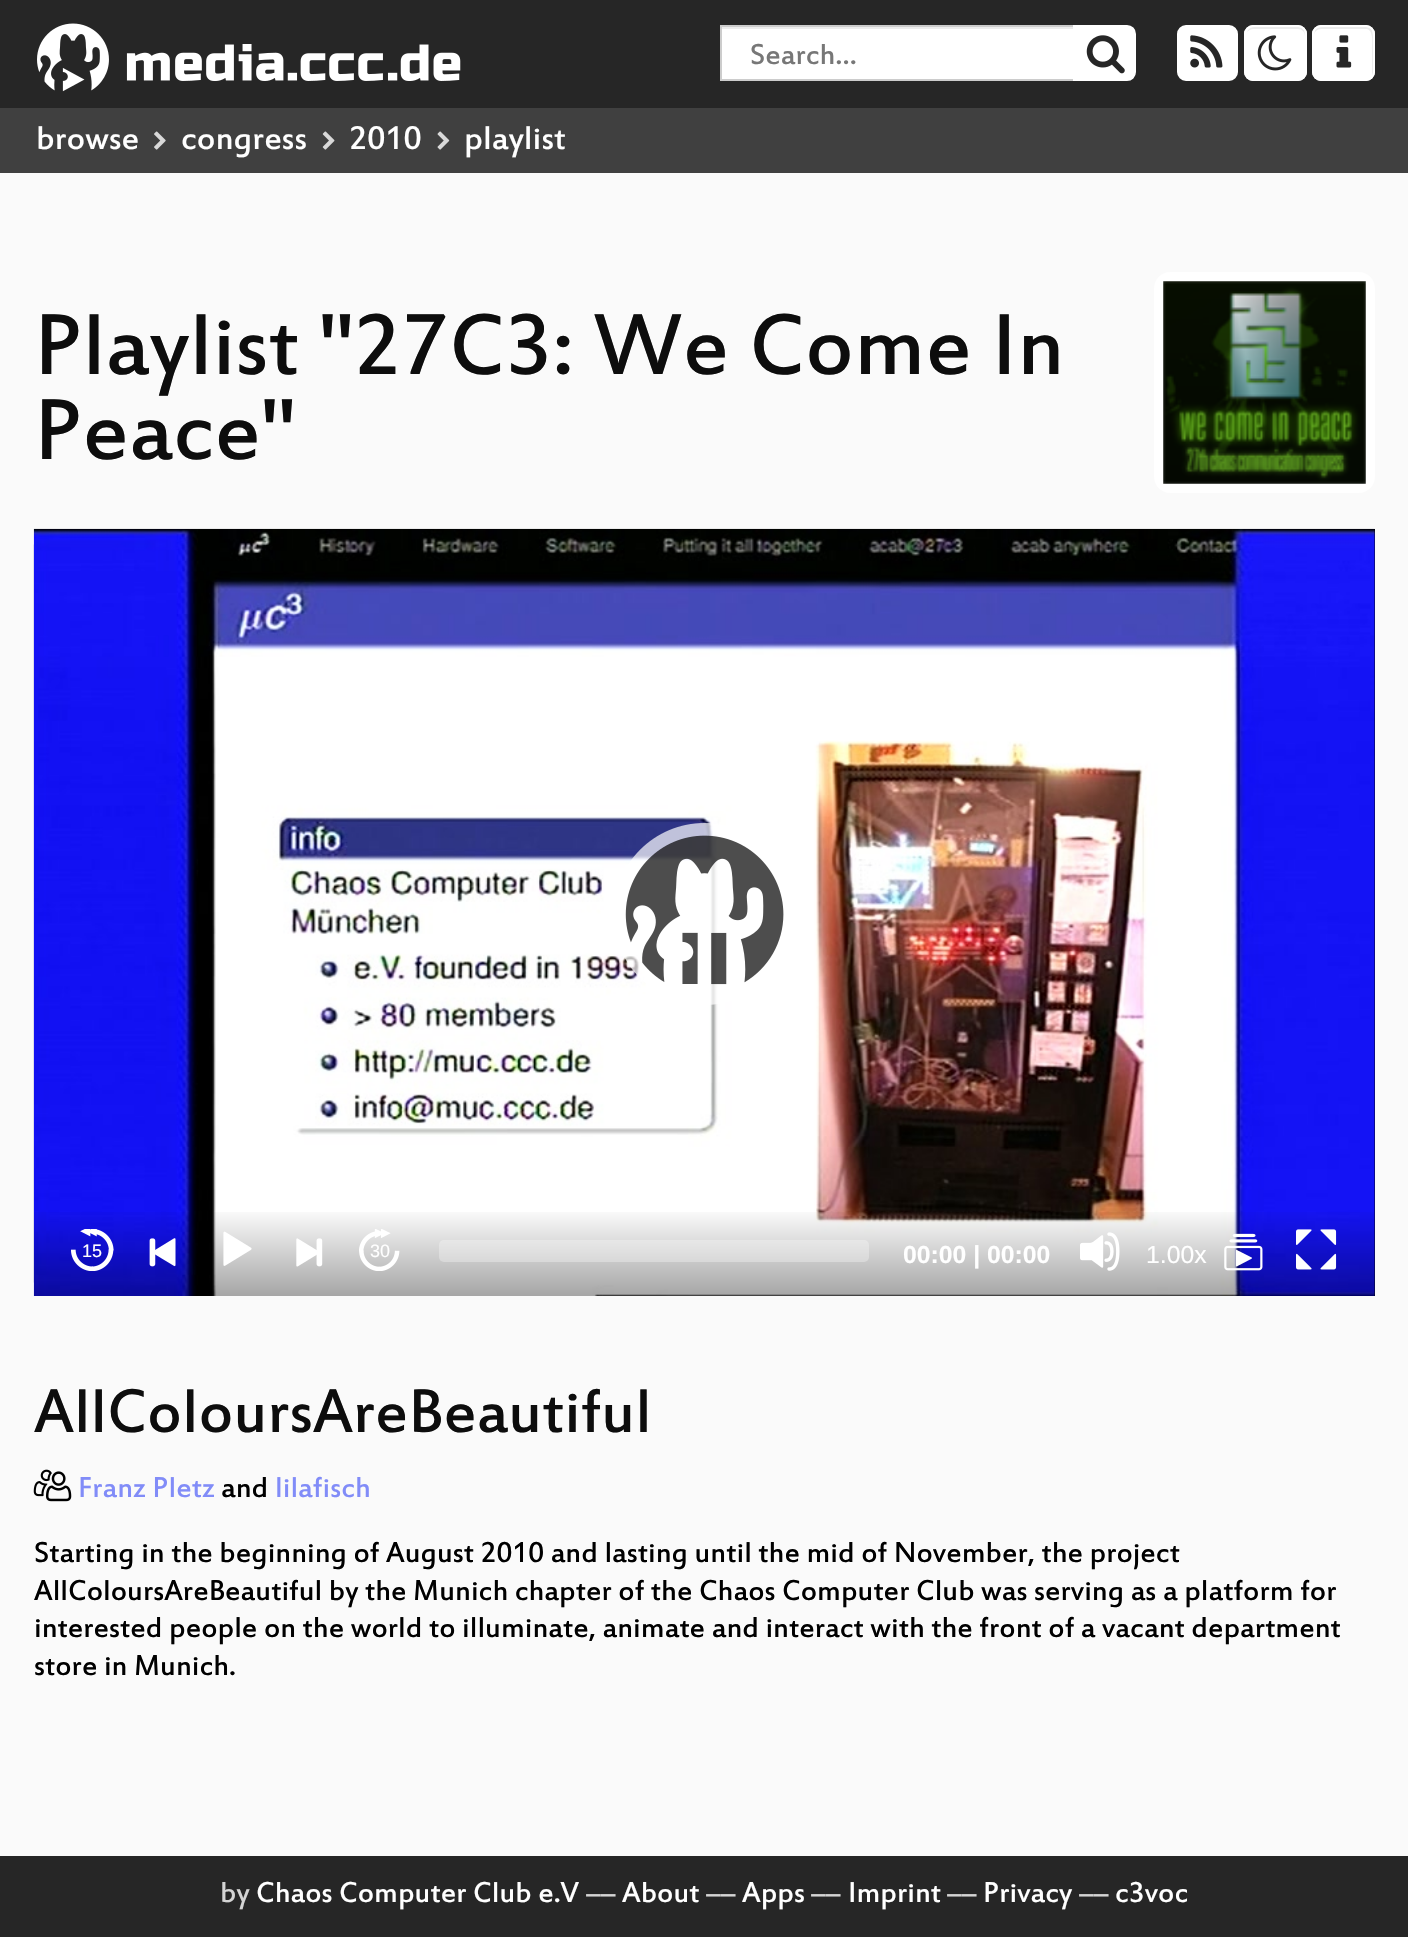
void draw(SkCanvas* canvas) {
    SkPaint paint;
    paint.setAntiAlias(true);
    auto face = [&](const char* family, int weight, float size, bool italic = false) {
        SkFontStyle style(weight, SkFontStyle::kNormal_Width,
            italic ? SkFontStyle::kItalic_Slant : SkFontStyle::kUpright_Slant);
        SkFont result(fontMgr->matchFamilyStyle(family, style), size);
        result.setSubpixel(true);
        return result;
    };
    auto write = [&](const char* s, float x, float y, const SkFont& font, SkColor color) {
        SkPaint ink(SkColor4f::FromColor(color));
        ink.setAntiAlias(true);
        canvas->drawString(s, x, y, font, ink);
    };
    auto block = [&](float x, float y, float w, float h, SkColor color) {
        SkPaint ink(SkColor4f::FromColor(color));
        ink.setAntiAlias(true);
        canvas->drawRect(SkRect::MakeXYWH(x, y, w, h), ink);
    };
    auto card = [&](float x, float y, float w, float h, float radius, SkColor color) {
        SkPaint ink(SkColor4f::FromColor(color));
        ink.setAntiAlias(true);
        canvas->drawRoundRect(SkRect::MakeXYWH(x, y, w, h), radius, radius, ink);
    };
    auto paste = [&](const char* path, float x, float y, float w, float h) {
        auto image = SkImages::DeferredFromEncodedData(SkData::MakeFromFileName(path));
        canvas->drawImageRect(image, SkRect::MakeXYWH(x, y, w, h), SkSamplingOptions());
    };
    canvas->clear(SkColorSetRGB(250, 250, 250));
    block(0, 0, 1408, 108, SkColorSetRGB(38, 38, 38));
    paste("pic1.png", 37, 23, 424, 69);
    block(722, 29, 351, 50, SK_ColorWHITE);
    block(722, 27, 351, 2, SkColorSetRGB(236, 236, 236));
    paint.setStyle(SkPaint::kStroke_Style);
    paint.setStrokeWidth(2);
    paint.setColor(SkColorSetRGB(204, 204, 204));
    canvas->drawRect(SkRect::MakeXYWH(721, 26, 354, 54), paint);
    auto kFont1 = face("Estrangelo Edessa", 400, 31.5f);
    write("Search…", 750, 64, kFont1, SkColorSetRGB(119, 119, 119));
    paint.setStyle(SkPaint::kFill_Style);
    paint.setColor(SK_ColorWHITE);
    canvas->drawPath(SkPathBuilder().moveTo(1074, 26).lineTo(1127, 26).cubicTo(1131.5f, 26, 1135, 29.5f, 1135, 34).lineTo(1135, 72).cubicTo(1135, 76.5f, 1131.5f, 80, 1127, 80).lineTo(1074, 80).close().detach(), paint);
    paint.setStyle(SkPaint::kStroke_Style);
    canvas->drawPath(SkPathBuilder().moveTo(1074, 26).lineTo(1127, 26).cubicTo(1131.5f, 26, 1135, 29.5f, 1135, 34).lineTo(1135, 72).cubicTo(1135, 76.5f, 1131.5f, 80, 1127, 80).lineTo(1074, 80).close().detach(), paint);
    paste("pic2.png", 1086, 35, 39, 39);
    paint.setStyle(SkPaint::kFill_Style);
    canvas->drawRoundRect(SkRect::MakeXYWH(1178, 26, 59, 54), 8, 8, paint);
    paint.setStyle(SkPaint::kStroke_Style);
    canvas->drawRoundRect(SkRect::MakeXYWH(1178, 26, 59, 54), 8, 8, paint);
    paste("pic3.png", 1190, 35, 33, 33);
    card(1244, 25, 63, 56, 9, SK_ColorWHITE);
    paint.setStyle(SkPaint::kFill_Style);
    paint.setColor(SkColorSetRGB(236, 236, 236));
    canvas->drawPath(SkPathBuilder().moveTo(1253, 29).lineTo(1298, 29).cubicTo(1302, 29, 1305, 32, 1305, 36).lineTo(1305, 34).cubicTo(1305, 30, 1302, 27, 1298, 27).lineTo(1254, 27).cubicTo(1251, 27, 1248, 29, 1247, 32).cubicTo(1249, 30, 1251, 29, 1253, 29).close().detach(), paint);
    paint.setStyle(SkPaint::kStroke_Style);
    paint.setColor(SK_ColorWHITE);
    canvas->drawRoundRect(SkRect::MakeXYWH(1245, 26, 61, 54), 8, 8, paint);
    paste("pic4.png", 1257, 35, 35, 36);
    card(1312, 25, 63, 56, 9, SK_ColorWHITE);
    paint.setStyle(SkPaint::kFill_Style);
    paint.setColor(SkColorSetRGB(236, 236, 236));
    canvas->drawPath(SkPathBuilder().moveTo(1321, 29).lineTo(1367, 29).cubicTo(1374, 31, 1372, 44, 1372, 49).lineTo(1372, 76).cubicTo(1374, 73, 1373, 69, 1373, 66).lineTo(1373, 53).cubicTo(1373, 22, 1376, 27, 1344, 27).lineTo(1328, 27).cubicTo(1320, 27, 1314, 26, 1314, 36).cubicTo(1314, 32, 1317, 29, 1321, 29).close().detach(), paint);
    paint.setStyle(SkPaint::kStroke_Style);
    paint.setColor(SK_ColorWHITE);
    canvas->drawRoundRect(SkRect::MakeXYWH(1313, 26, 61, 54), 8, 8, paint);
    paste("pic5.png", 1336, 35, 16, 33);
    block(0, 108, 1408, 65, SkColorSetRGB(64, 64, 64));
    auto kFont2 = face("Estrangelo Edessa", 400, 36);
    write("browse", 36, 149, kFont2, SK_ColorWHITE);
    paste("pic6.png", 154, 131, 12, 19);
    write("congress", 181, 149, kFont2, SK_ColorWHITE);
    paste("pic7.png", 322, 131, 13, 19);
    write("2010", 349, 149, kFont2, SK_ColorWHITE);
    paste("pic8.png", 437, 131, 13, 19);
    write("playlist", 464, 149, kFont2, SK_ColorWHITE);
    auto kFont3 = face("Estrangelo Edessa", 400, 94.5f);
    write("Playlist \"27C3: We Come In", 34, 374, kFont3, SkColorSetRGB(13, 13, 13));
    write("Peace\"", 34, 459, kFont3, SkColorSetRGB(13, 13, 13));
    card(1154, 272, 221, 221, 16, SK_ColorWHITE);
    paste("pic9.png", 1163, 281, 203, 203);
    block(1374, 529, 1, 767, SK_ColorBLACK);
    paste("pic12.png", 33, 544, 1, 739);
    paste("pic10.png", 33, 528, 1342, 768);
    paste("pic11.png", 624, 823, 160, 182);
    paint.setStyle(SkPaint::kFill_Style);
    {
        const SkColor colors[] = {SkColorSetARGB(0, 0, 0, 0), SkColorSetARGB(89, 0, 0, 0)};
        const float stops[] = {0, 1};
        const SkPoint ends[] = {{704, 1206}, {704, 1296}};
        paint.setShader(SkGradientShader::MakeLinear(ends, colors, stops, 2, SkTileMode::kClamp));
        paint.setAlpha(255);
    }
    canvas->drawRect(SkRect::MakeXYWH(34, 1212, 1341, 84), paint);
    paste("pic13.png", 71, 1229, 43, 42);
    auto kFont4 = face("Liberation Sans", 400, 18);
    write("15", 82, 1257, kFont4, SK_ColorWHITE);
    paste("pic14.png", 149, 1238, 27, 29);
    paste("pic15.png", 223, 1231, 29, 35);
    paste("pic16.png", 296, 1238, 27, 29);
    paste("pic17.png", 359, 1229, 41, 42);
    write("30", 370, 1257, kFont4, SK_ColorWHITE);
    card(439, 1240, 430, 22, 5, SkColorSetARGB(77, 255, 255, 255));
    auto kFont5 = face("Liberation Sans", 700, 24.75f);
    write("00:00 | 00:00", 903, 1263, kFont5, SK_ColorWHITE);
    paste("pic18.png", 1080, 1232, 40, 39);
    auto kFont6 = face("Liberation Sans", 400, 24.75f);
    write("1.00x", 1146, 1263, kFont6, SK_ColorWHITE);
    paste("pic19.png", 1224, 1233, 39, 38);
    paste("pic20.png", 1296, 1229, 41, 41);
    auto kFont7 = face("Estrangelo Edessa", 400, 67.5f);
    write("AllColoursAreBeautiful", 34, 1432, kFont7, SkColorSetRGB(13, 13, 13));
    paste("pic21.png", 33, 1469, 39, 33);
    write("Franz Pletz", 78, 1497, kFont1, SkColorSetRGB(129, 140, 248));
    write("and", 221, 1497, kFont1, SK_ColorBLACK);
    write("lilafisch", 275, 1497, kFont1, SkColorSetRGB(129, 140, 248));
    write("Starting in the beginning of August 2010 and lasting until the mid of November, the project", 34, 1562, kFont1, SK_ColorBLACK);
    write("AllColoursAreBeautiful by the Munich chapter of the Chaos Computer Club was serving as a platform for", 34, 1600, kFont1, SK_ColorBLACK);
    write("interested people on the world to illuminate, animate and interact with the front of a vacant department", 34, 1637, kFont1, SK_ColorBLACK);
    write("store in Munich.", 34, 1675, kFont1, SK_ColorBLACK);
    block(0, 1856, 1408, 81, SkColorSetRGB(38, 38, 38));
    write("by", 220, 1902, kFont1, SkColorSetRGB(212, 212, 212));
    write("Chaos Computer Club e.V", 256, 1902, kFont1, SK_ColorWHITE);
    write("––", 586, 1902, kFont1, SkColorSetRGB(212, 212, 212));
    write("About", 622, 1902, kFont1, SK_ColorWHITE);
    write("––", 706, 1902, kFont1, SkColorSetRGB(212, 212, 212));
    write("Apps", 742, 1902, kFont1, SK_ColorWHITE);
    write("––", 811, 1902, kFont1, SkColorSetRGB(212, 212, 212));
    write("Imprint", 848, 1902, kFont1, SK_ColorWHITE);
    write("––", 947, 1902, kFont1, SkColorSetRGB(212, 212, 212));
    write("Privacy", 983, 1902, kFont1, SK_ColorWHITE);
    write("––", 1079, 1902, kFont1, SkColorSetRGB(212, 212, 212));
    write("c3voc", 1115, 1902, kFont1, SK_ColorWHITE);
}
